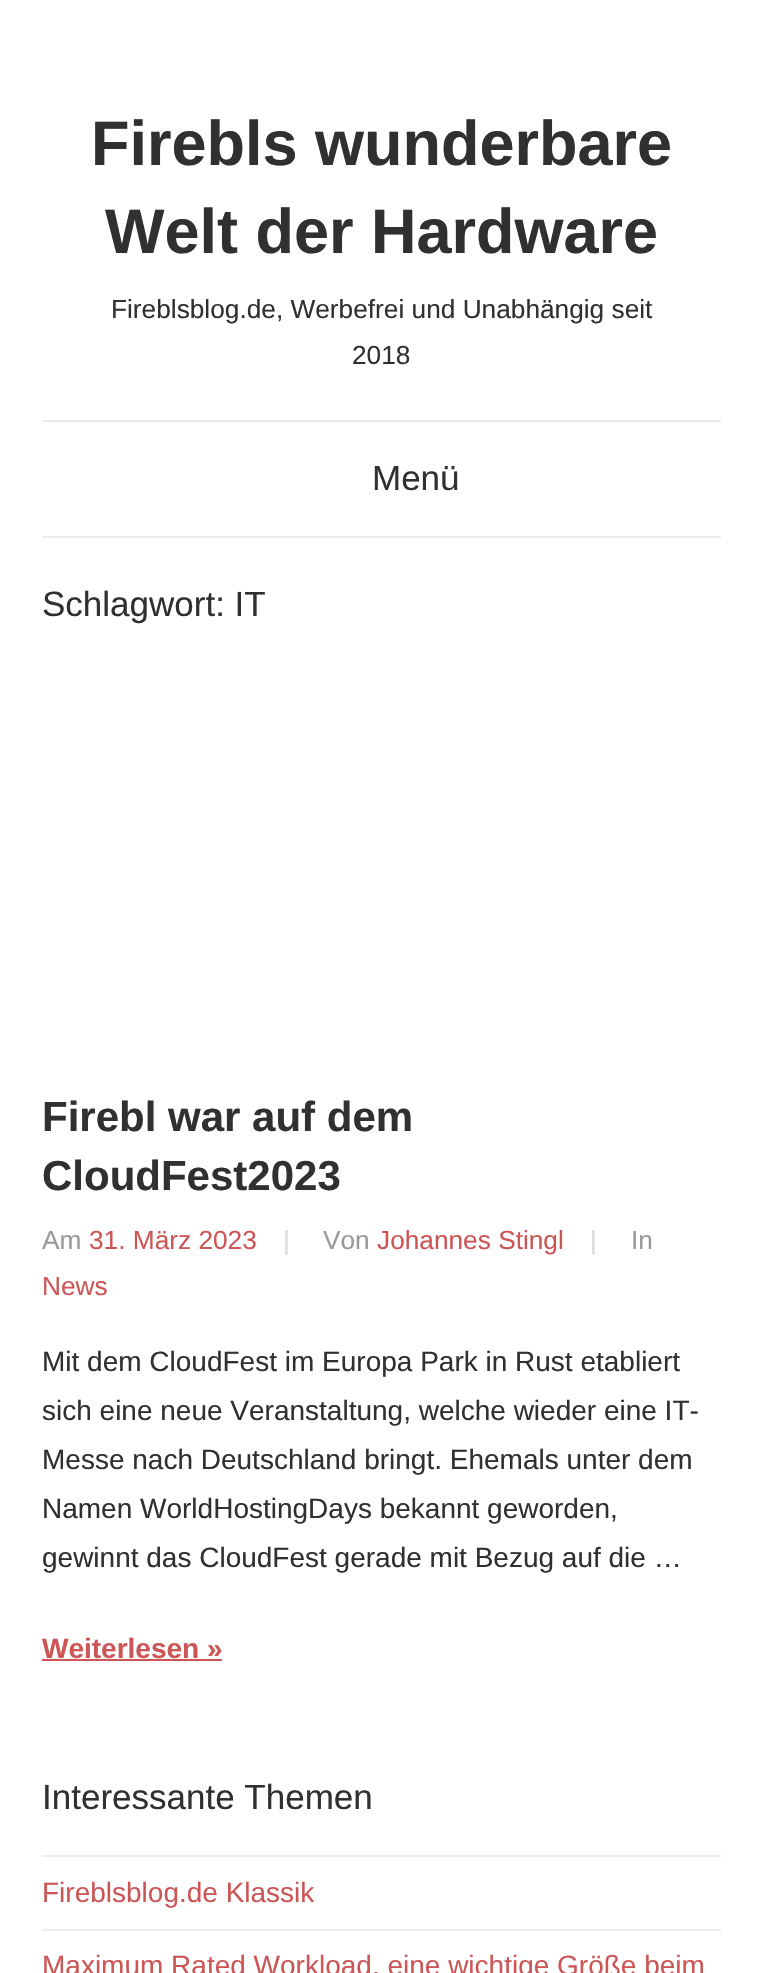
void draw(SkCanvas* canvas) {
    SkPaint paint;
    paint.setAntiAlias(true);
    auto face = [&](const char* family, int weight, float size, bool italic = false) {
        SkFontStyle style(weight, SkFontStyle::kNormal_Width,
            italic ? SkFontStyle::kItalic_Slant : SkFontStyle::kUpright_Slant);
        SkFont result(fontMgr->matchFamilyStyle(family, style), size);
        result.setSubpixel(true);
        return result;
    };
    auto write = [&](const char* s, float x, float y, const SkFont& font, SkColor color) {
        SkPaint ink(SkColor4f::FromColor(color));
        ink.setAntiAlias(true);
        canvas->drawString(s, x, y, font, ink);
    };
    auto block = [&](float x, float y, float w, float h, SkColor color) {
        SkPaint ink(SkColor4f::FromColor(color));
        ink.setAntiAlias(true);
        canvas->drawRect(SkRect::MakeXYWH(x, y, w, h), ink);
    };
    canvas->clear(SK_ColorWHITE);
    block(42, 536, 679, 2, SkColorSetRGB(236, 236, 236));
    auto kFont1 = face("Liberation Sans", 700, 63);
    write("Firebls wunderbare", 91, 165, kFont1, SkColorSetRGB(48, 48, 48));
    write("Welt der Hardware", 105, 253, kFont1, SkColorSetRGB(48, 48, 48));
    auto kFont2 = face("Liberation Sans", 400, 26.25f);
    write("Fireblsblog.de, Werbefrei und Unabhängig seit", 111, 318, kFont2, SkColorSetRGB(48, 48, 48));
    write("2018", 352, 364, kFont2, SkColorSetRGB(48, 48, 48));
    block(42, 420, 679, 2, SkColorSetRGB(236, 236, 236));
    auto kFont3 = face("Liberation Sans", 400, 35);
    write("Menü", 372, 490, kFont3, SkColorSetRGB(48, 48, 48));
    write("Schlagwort: IT", 42, 616, kFont3, SkColorSetRGB(48, 48, 48));
    auto kFont4 = face("Liberation Sans", 700, 42);
    write("Firebl war auf dem", 42, 1131, kFont4, SkColorSetRGB(48, 48, 48));
    write("CloudFest2023", 42, 1190, kFont4, SkColorSetRGB(48, 48, 48));
    write("Am", 42, 1249, kFont2, SkColorSetRGB(153, 153, 153));
    write("31. März 2023", 89, 1249, kFont2, SkColorSetRGB(204, 85, 85));
    write("|", 283, 1249, kFont2, SkColorSetRGB(217, 217, 217));
    write("Von", 323, 1249, kFont2, SkColorSetRGB(153, 153, 153));
    write("Johannes Stingl", 377, 1249, kFont2, SkColorSetRGB(204, 85, 85));
    write("|", 590, 1249, kFont2, SkColorSetRGB(217, 217, 217));
    write("In", 631, 1249, kFont2, SkColorSetRGB(153, 153, 153));
    write("News", 42, 1295, kFont2, SkColorSetRGB(204, 85, 85));
    auto kFont5 = face("Liberation Sans", 400, 28);
    write("Mit dem CloudFest im Europa Park in Rust etabliert", 42, 1371, kFont5, SkColorSetRGB(48, 48, 48));
    write("sich eine neue Veranstaltung, welche wieder eine IT-", 42, 1420, kFont5, SkColorSetRGB(48, 48, 48));
    write("Messe nach Deutschland bringt. Ehemals unter dem", 42, 1469, kFont5, SkColorSetRGB(48, 48, 48));
    write("Namen WorldHostingDays bekannt geworden,", 42, 1518, kFont5, SkColorSetRGB(48, 48, 48));
    write("gewinnt das CloudFest gerade mit Bezug auf die …", 42, 1567, kFont5, SkColorSetRGB(48, 48, 48));
    auto kFont6 = face("Liberation Sans", 700, 28);
    write("Weiterlesen »", 42, 1658, kFont6, SkColorSetRGB(204, 85, 85));
    block(42, 1659, 180, 2, SkColorSetRGB(204, 85, 85));
    write("Interessante Themen", 42, 1809, kFont3, SkColorSetRGB(48, 48, 48));
    block(42, 1855, 679, 2, SkColorSetRGB(236, 236, 236));
    block(42, 1929, 679, 2, SkColorSetRGB(236, 236, 236));
    write("Fireblsblog.de Klassik", 42, 1902, kFont5, SkColorSetRGB(204, 85, 85));
    write("Maximum Rated Workload, eine wichtige Größe beim", 42, 1975, kFont5, SkColorSetRGB(204, 85, 85));
}
